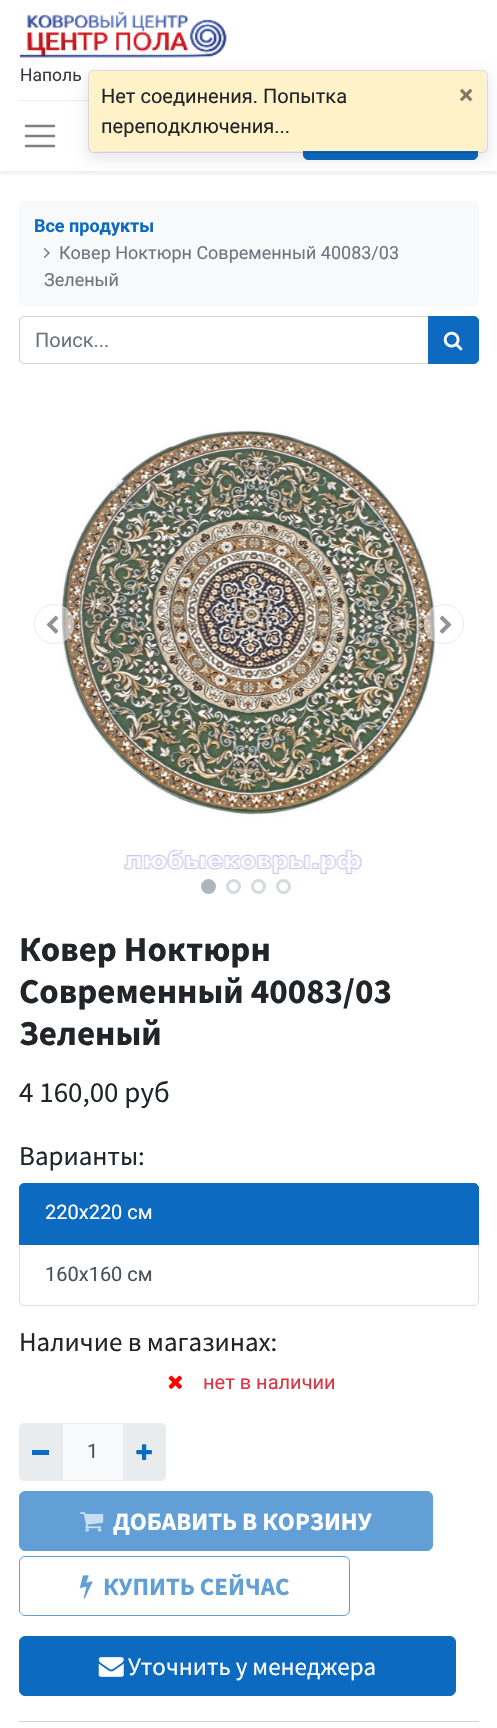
void draw(SkCanvas* canvas) {
    SkPaint paint;
    paint.setAntiAlias(true);
    auto face = [&](const char* family, int weight, float size, bool italic = false) {
        SkFontStyle style(weight, SkFontStyle::kNormal_Width,
            italic ? SkFontStyle::kItalic_Slant : SkFontStyle::kUpright_Slant);
        SkFont result(fontMgr->matchFamilyStyle(family, style), size);
        result.setSubpixel(true);
        return result;
    };
    auto write = [&](const char* s, float x, float y, const SkFont& font, SkColor color) {
        SkPaint ink(SkColor4f::FromColor(color));
        ink.setAntiAlias(true);
        canvas->drawString(s, x, y, font, ink);
    };
    auto block = [&](float x, float y, float w, float h, SkColor color) {
        SkPaint ink(SkColor4f::FromColor(color));
        ink.setAntiAlias(true);
        canvas->drawRect(SkRect::MakeXYWH(x, y, w, h), ink);
    };
    auto card = [&](float x, float y, float w, float h, float radius, SkColor color) {
        SkPaint ink(SkColor4f::FromColor(color));
        ink.setAntiAlias(true);
        canvas->drawRoundRect(SkRect::MakeXYWH(x, y, w, h), radius, radius, ink);
    };
    auto paste = [&](const char* path, float x, float y, float w, float h) {
        auto image = SkImages::DeferredFromEncodedData(SkData::MakeFromFileName(path));
        canvas->drawImageRect(image, SkRect::MakeXYWH(x, y, w, h), SkSamplingOptions());
    };
    canvas->clear(SK_ColorWHITE);
    canvas->save();
    canvas->clipRect(SkRect::MakeXYWH(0, 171, 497, 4));
    paint.setColor(SkColorSetARGB(18, 0, 0, 0));
    paint.setMaskFilter(SkMaskFilter::MakeBlur(kNormal_SkBlurStyle, 2.5f));
    canvas->drawRect(SkRect::MakeXYWH(0, 3, 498, 171), paint);
    paint.setMaskFilter(nullptr);
    canvas->restore();
    paste("pic1.png", 20, 11, 207, 47);
    auto kFont1 = face("Roboto", 400, 17.5f);
    write("Наполь", 20, 81, kFont1, SkColorSetRGB(52, 58, 64));
    block(20, 100, 69, 1, SkColorSetRGB(233, 236, 239));
    paint.setStyle(SkPaint::kStroke_Style);
    paint.setStrokeWidth(2.5f);
    paint.setStrokeCap(SkPaint::kRound_Cap);
    paint.setColor(SkColorSetRGB(128, 128, 128));
    canvas->drawPath(SkPathBuilder().moveTo(26, 126).lineTo(54, 126).moveTo(26, 136).lineTo(54, 136).moveTo(26, 146).lineTo(54, 146).detach(), paint);
    paint.setStyle(SkPaint::kFill_Style);
    paint.setColor(SkColorSetRGB(12, 107, 192));
    canvas->drawRoundRect(SkRect::MakeXYWH(303.5f, 113.5f, 174, 46), 4.5f, 4.5f, paint);
    paint.setStyle(SkPaint::kStroke_Style);
    paint.setStrokeWidth(1);
    paint.setStrokeCap(SkPaint::kButt_Cap);
    canvas->drawRoundRect(SkRect::MakeXYWH(303.5f, 113.5f, 174, 46), 4.5f, 4.5f, paint);
    card(19, 201, 460, 105, 5, SkColorSetRGB(248, 249, 250));
    auto kFont2 = face("Roboto", 700, 18);
    write("Все продукты", 34, 232, kFont2, SkColorSetRGB(12, 107, 192));
    paste("pic2.png", 43, 248, 7, 10);
    auto kFont3 = face("Roboto", 400, 18);
    write("Ковер Ноктюрн Современный 40083/03", 59, 259, kFont3, SkColorSetRGB(108, 117, 125));
    write("Зеленый", 44, 286, kFont3, SkColorSetRGB(108, 117, 125));
    paint.setColor(SkColorSetRGB(206, 212, 218));
    canvas->drawPath(SkPathBuilder().moveTo(24, 316.5f).lineTo(428.5f, 316.5f).lineTo(428.5f, 363.5f).lineTo(24, 363.5f).cubicTo(21.5f, 363.5f, 19.5f, 361.5f, 19.5f, 359).lineTo(19.5f, 321).cubicTo(19.5f, 318.5f, 21.5f, 316.5f, 24, 316.5f).close().detach(), paint);
    auto kFont4 = face("Roboto", 400, 20);
    write("Поиск...", 35, 347, kFont4, SkColorSetRGB(108, 117, 125));
    paint.setStyle(SkPaint::kFill_Style);
    paint.setColor(SkColorSetRGB(12, 107, 192));
    canvas->drawPath(SkPathBuilder().moveTo(428.5f, 316.5f).lineTo(474, 316.5f).cubicTo(476.5f, 316.5f, 478.5f, 318.5f, 478.5f, 321).lineTo(478.5f, 359).cubicTo(478.5f, 361.5f, 476.5f, 363.5f, 474, 363.5f).lineTo(428.5f, 363.5f).close().detach(), paint);
    paint.setStyle(SkPaint::kStroke_Style);
    canvas->drawPath(SkPathBuilder().moveTo(428.5f, 316.5f).lineTo(474, 316.5f).cubicTo(476.5f, 316.5f, 478.5f, 318.5f, 478.5f, 321).lineTo(478.5f, 359).cubicTo(478.5f, 361.5f, 476.5f, 363.5f, 474, 363.5f).lineTo(428.5f, 363.5f).close().detach(), paint);
    paste("pic3.png", 443, 331, 20, 20);
    paste("pic5.png", 61, 430, 375, 444);
    paint.setStyle(SkPaint::kFill_Style);
    paint.setColor(SkColorSetARGB(128, 255, 255, 255));
    canvas->drawCircle(54, 624, 20, paint);
    paint.setStyle(SkPaint::kStroke_Style);
    paint.setColor(SkColorSetARGB(128, 206, 212, 218));
    canvas->drawCircle(54, 624, 19.5f, paint);
    paste("pic4.png", 46, 615, 13, 19);
    paint.setStyle(SkPaint::kFill_Style);
    paint.setColor(SkColorSetARGB(128, 255, 255, 255));
    canvas->drawCircle(444, 624, 20, paint);
    paint.setStyle(SkPaint::kStroke_Style);
    paint.setColor(SkColorSetARGB(128, 206, 212, 218));
    canvas->drawCircle(444, 624, 19.5f, paint);
    paste("pic6.png", 439, 615, 13, 19);
    paint.setStyle(SkPaint::kFill_Style);
    paint.setColor(SkColorSetRGB(173, 181, 189));
    canvas->drawCircle(208.5f, 886.5f, 6, paint);
    paint.setStyle(SkPaint::kStroke_Style);
    paint.setStrokeWidth(3);
    canvas->drawCircle(208.5f, 886.5f, 6, paint);
    paint.setColor(SkColorSetRGB(214, 218, 222));
    canvas->drawCircle(233.5f, 886.5f, 6, paint);
    canvas->drawCircle(258.5f, 886.5f, 6, paint);
    canvas->drawCircle(283.5f, 886.5f, 6, paint);
    auto kFont5 = face("Source Sans Pro", 700, 35);
    write("Ковер Ноктюрн", 19, 961, kFont5, SkColorSetRGB(33, 37, 41));
    write("Современный 40083/03", 19, 1003, kFont5, SkColorSetRGB(33, 37, 41));
    write("Зеленый", 19, 1045, kFont5, SkColorSetRGB(33, 37, 41));
    auto kFont6 = face("Source Sans Pro", 400, 29);
    write("4 160,00 руб", 19, 1102, kFont6, SkColorSetRGB(33, 37, 41));
    auto kFont7 = face("Source Sans Pro", 400, 27);
    write("Варианты:", 19, 1165, kFont7, SkColorSetRGB(33, 37, 41));
    paint.setStrokeWidth(1);
    paint.setColor(SkColorSetRGB(223, 223, 223));
    canvas->drawPath(SkPathBuilder().moveTo(19.5f, 1244.5f).lineTo(478.5f, 1244.5f).lineTo(478.5f, 1301).cubicTo(478.5f, 1303.5f, 476.5f, 1305.5f, 474, 1305.5f).lineTo(24, 1305.5f).cubicTo(21.5f, 1305.5f, 19.5f, 1303.5f, 19.5f, 1301).close().detach(), paint);
    paint.setStyle(SkPaint::kFill_Style);
    paint.setColor(SkColorSetRGB(12, 107, 192));
    canvas->drawPath(SkPathBuilder().moveTo(24, 1183.5f).lineTo(474, 1183.5f).cubicTo(476.5f, 1183.5f, 478.5f, 1185.5f, 478.5f, 1188).lineTo(478.5f, 1244.5f).lineTo(19.5f, 1244.5f).lineTo(19.5f, 1188).cubicTo(19.5f, 1185.5f, 21.5f, 1183.5f, 24, 1183.5f).close().detach(), paint);
    paint.setStyle(SkPaint::kStroke_Style);
    canvas->drawPath(SkPathBuilder().moveTo(24, 1183.5f).lineTo(474, 1183.5f).cubicTo(476.5f, 1183.5f, 478.5f, 1185.5f, 478.5f, 1188).lineTo(478.5f, 1244.5f).lineTo(19.5f, 1244.5f).lineTo(19.5f, 1188).cubicTo(19.5f, 1185.5f, 21.5f, 1183.5f, 24, 1183.5f).close().detach(), paint);
    write("220x220 см", 45, 1219, kFont4, SK_ColorWHITE);
    write("160x160 см", 45, 1281, kFont4, SkColorSetRGB(73, 80, 87));
    write("Наличие в магазинах:", 19, 1351, kFont7, SkColorSetRGB(33, 37, 41));
    paste("pic7.png", 168, 1375, 14, 14);
    write("нет в наличии", 203, 1389, kFont4, SkColorSetRGB(220, 53, 69));
    block(63, 1424, 60, 56, SkColorSetRGB(248, 249, 250));
    paint.setColor(SkColorSetRGB(233, 236, 239));
    canvas->drawRect(SkRect::MakeXYWH(61.5f, 1423.5f, 62, 57), paint);
    paint.setStyle(SkPaint::kFill_Style);
    canvas->drawPath(SkPathBuilder().moveTo(24, 1423).lineTo(63, 1423).lineTo(63, 1481).lineTo(24, 1481).cubicTo(21, 1481, 19, 1479, 19, 1476).lineTo(19, 1428).cubicTo(19, 1425, 21, 1423, 24, 1423).close().detach(), paint);
    block(32, 1450, 17, 5, SkColorSetRGB(12, 107, 192));
    write("1", 87, 1458, kFont4, SkColorSetRGB(73, 80, 87));
    canvas->drawPath(SkPathBuilder().moveTo(123, 1423).lineTo(161, 1423).cubicTo(164, 1423, 166, 1425, 166, 1428).lineTo(166, 1476).cubicTo(166, 1479, 164, 1481, 161, 1481).lineTo(123, 1481).close().detach(), paint);
    paste("pic8.png", 136, 1444, 16, 16);
    paint.setColor(SkColorSetRGB(97, 159, 214));
    canvas->drawRoundRect(SkRect::MakeXYWH(19.5f, 1491.5f, 413, 59), 5.5f, 5.5f, paint);
    paint.setStyle(SkPaint::kStroke_Style);
    canvas->drawRoundRect(SkRect::MakeXYWH(19.5f, 1491.5f, 413, 59), 5.5f, 5.5f, paint);
    paste("pic9.png", 80, 1512, 24, 20);
    auto kFont8 = face("Source Sans Pro", 700, 25);
    write("ДОБАВИТЬ В КОРЗИНУ", 113, 1530, kFont8, SK_ColorWHITE);
    canvas->drawRoundRect(SkRect::MakeXYWH(19.5f, 1556.5f, 330, 59), 5.5f, 5.5f, paint);
    paste("pic10.png", 80, 1575, 13, 24);
    write("КУПИТЬ СЕЙЧАС", 103, 1595, kFont8, SkColorSetRGB(97, 159, 214));
    paint.setStyle(SkPaint::kFill_Style);
    paint.setColor(SkColorSetRGB(12, 107, 192));
    canvas->drawRoundRect(SkRect::MakeXYWH(19.5f, 1636.5f, 436, 59), 5.5f, 5.5f, paint);
    paint.setStyle(SkPaint::kStroke_Style);
    canvas->drawRoundRect(SkRect::MakeXYWH(19.5f, 1636.5f, 436, 59), 5.5f, 5.5f, paint);
    paste("pic11.png", 98, 1657, 26, 20);
    auto kFont9 = face("Source Sans Pro", 400, 25);
    write("Уточнить у менеджера", 128, 1675, kFont9, SK_ColorWHITE);
    block(19, 1721, 460, 1, SkColorSetRGB(206, 212, 218));
    paint.setStyle(SkPaint::kFill_Style);
    paint.setColor(SkColorSetARGB(26, 0, 0, 0));
    paint.setMaskFilter(SkMaskFilter::MakeBlur(kNormal_SkBlurStyle, 7.5f));
    canvas->drawRoundRect(SkRect::MakeXYWH(88, 75, 400, 83), 5, 5, paint);
    paint.setMaskFilter(nullptr);
    card(89, 71, 397, 80, 4, SkColorSetRGB(255, 193, 7));
    paint.setStyle(SkPaint::kStroke_Style);
    canvas->drawRoundRect(SkRect::MakeXYWH(88.5f, 70.5f, 399, 82), 4.5f, 4.5f, paint);
    card(89, 71, 397, 80, 4, SkColorSetARGB(199, 255, 255, 255));
    write("Нет соединения. Попытка", 101, 103, kFont4, SkColorSetRGB(33, 37, 41));
    write("переподключения...", 101, 133, kFont4, SkColorSetRGB(33, 37, 41));
    auto kFont10 = face("Roboto", 700, 27);
    write("×", 459, 104, kFont10, SkColorSetRGB(128, 121, 100));
}
